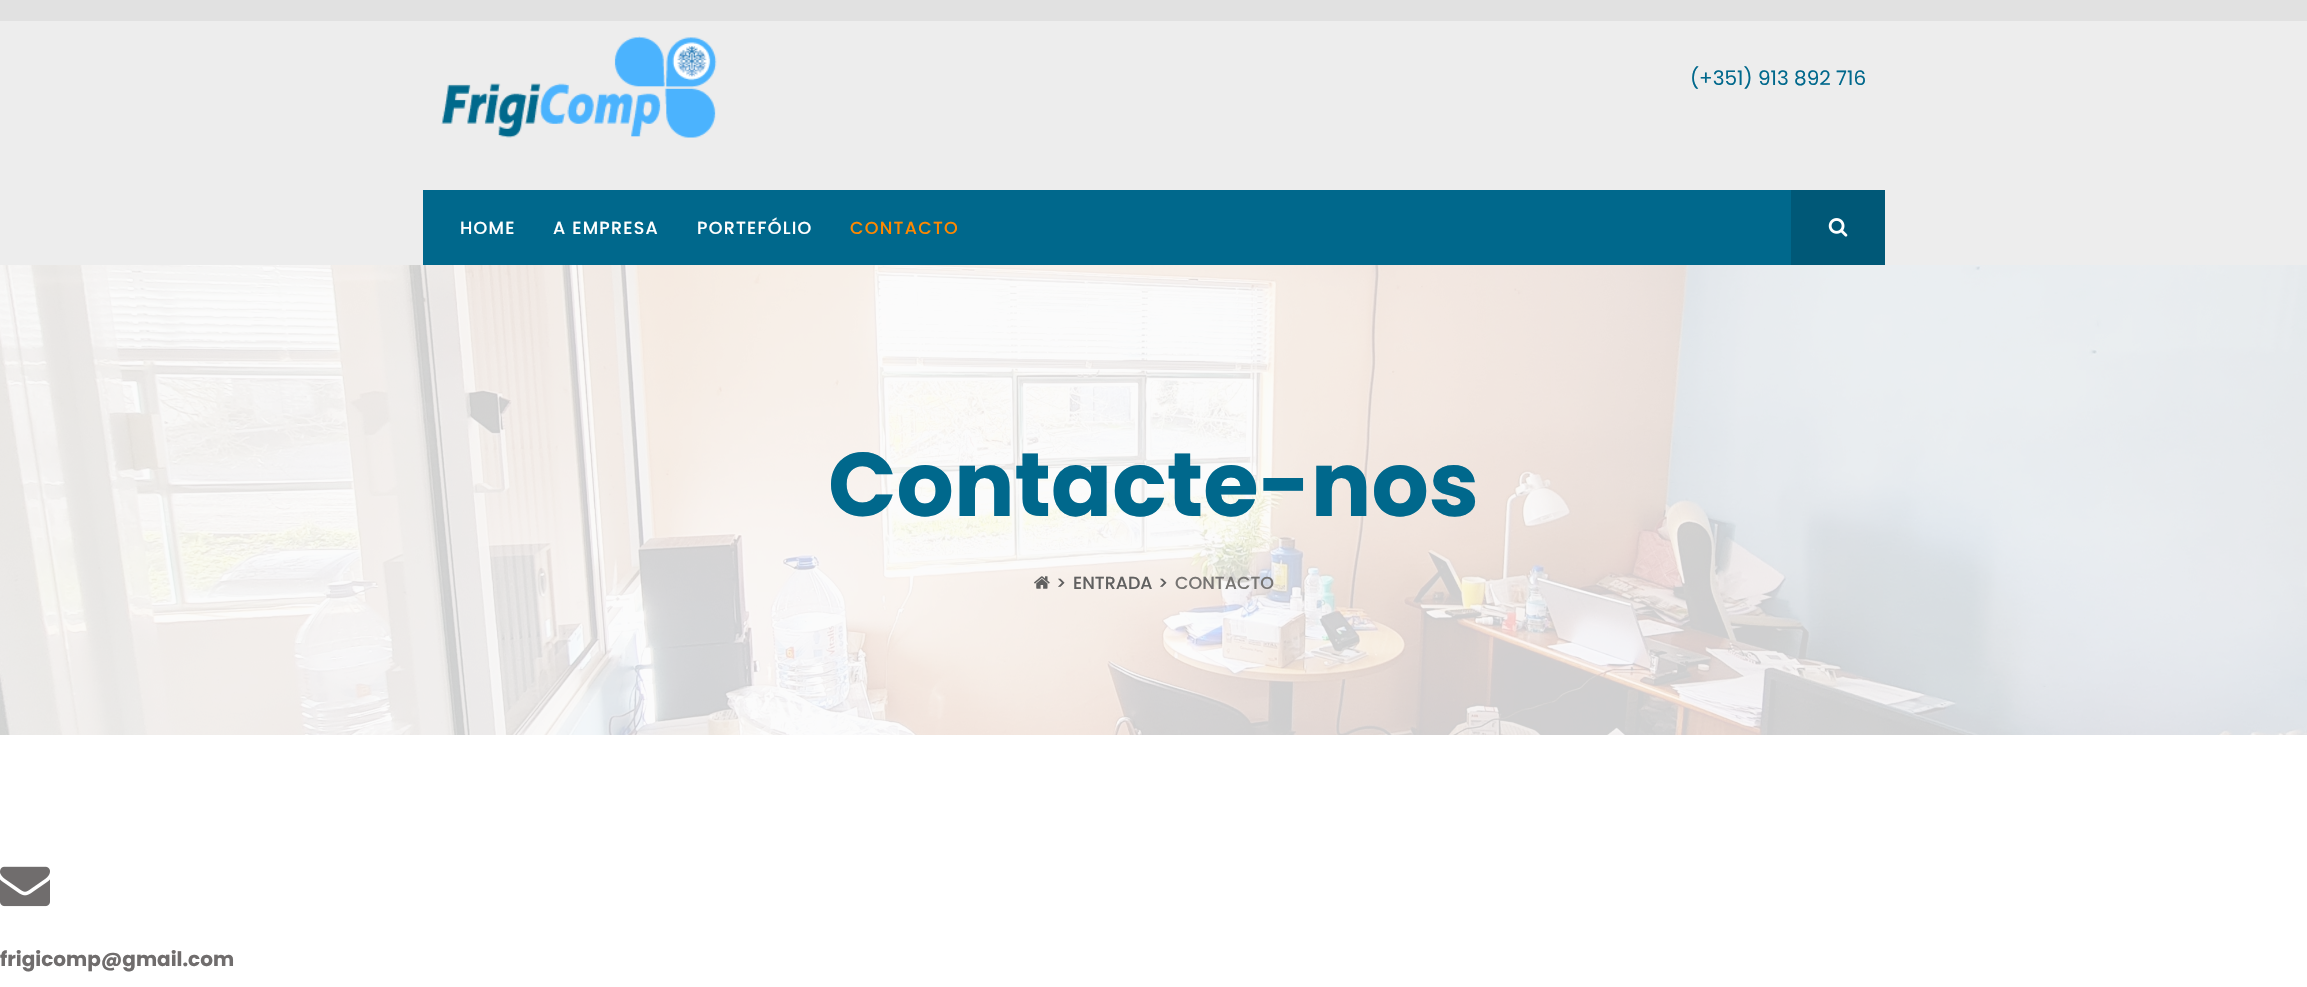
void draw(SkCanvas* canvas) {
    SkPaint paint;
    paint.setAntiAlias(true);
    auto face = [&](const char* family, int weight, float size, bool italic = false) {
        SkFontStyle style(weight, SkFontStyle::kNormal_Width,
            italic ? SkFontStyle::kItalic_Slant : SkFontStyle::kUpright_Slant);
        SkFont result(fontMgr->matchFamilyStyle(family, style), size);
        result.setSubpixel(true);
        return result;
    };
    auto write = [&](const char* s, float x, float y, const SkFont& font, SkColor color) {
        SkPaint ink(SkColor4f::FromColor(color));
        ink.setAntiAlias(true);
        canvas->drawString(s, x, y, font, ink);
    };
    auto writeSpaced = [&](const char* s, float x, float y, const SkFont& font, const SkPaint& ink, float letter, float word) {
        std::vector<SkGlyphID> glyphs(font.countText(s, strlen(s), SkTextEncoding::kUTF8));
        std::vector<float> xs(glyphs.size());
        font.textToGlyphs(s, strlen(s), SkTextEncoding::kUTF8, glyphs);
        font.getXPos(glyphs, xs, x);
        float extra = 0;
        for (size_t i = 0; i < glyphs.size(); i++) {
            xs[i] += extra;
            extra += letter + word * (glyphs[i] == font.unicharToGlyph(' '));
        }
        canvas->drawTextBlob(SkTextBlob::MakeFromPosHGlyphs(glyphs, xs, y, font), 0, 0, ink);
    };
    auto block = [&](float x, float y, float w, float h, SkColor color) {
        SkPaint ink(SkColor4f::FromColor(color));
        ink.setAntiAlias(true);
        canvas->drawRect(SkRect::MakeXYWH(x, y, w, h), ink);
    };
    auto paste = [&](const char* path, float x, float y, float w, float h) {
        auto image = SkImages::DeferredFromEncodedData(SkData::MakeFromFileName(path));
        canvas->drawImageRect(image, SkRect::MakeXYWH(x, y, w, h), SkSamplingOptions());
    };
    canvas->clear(SkColorSetRGB(237, 237, 237));
    block(0, 0, 2307, 21, SkColorSetRGB(225, 225, 225));
    paste("pic1.png", 441, 36, 276, 102);
    auto kFont1 = face("Poppins", 400, 20);
    write("(+351) 913 892 716", 1690, 85, kFont1, SkColorSetRGB(0, 104, 140));
    block(423, 190, 1368, 75, SkColorSetRGB(0, 104, 140));
    auto kFont2 = face("Poppins", 500, 17.5f);
    paint.setColor(SK_ColorWHITE);
    writeSpaced("HOME", 460, 234, kFont2, paint, 1.25f, 0);
    writeSpaced("A EMPRESA", 553, 234, kFont2, paint, 1.25f, 0);
    writeSpaced("PORTEFÓLIO", 697, 234, kFont2, paint, 1.25f, 0);
    paint.setColor(SkColorSetRGB(255, 136, 0));
    writeSpaced("CONTACTO", 850, 234, kFont2, paint, 1.25f, 0);
    block(1791, 190, 94, 75, SkColorSetRGB(0, 88, 119));
    paste("pic2.png", 1828, 218, 20, 19);
    paste("pic3.png", 0, 265, 2307, 470);
    auto kFont3 = face("Poppins", 700, 90);
    write("Contacte-nos", 828, 516, kFont3, SkColorSetRGB(0, 104, 140));
    paste("pic4.png", 1034, 576, 16, 13);
    write(">", 1056, 589, kFont2, SkColorSetRGB(96, 96, 96));
    write("ENTRADA", 1073, 589, kFont2, SkColorSetRGB(96, 96, 96));
    write(">", 1158, 589, kFont2, SkColorSetRGB(96, 96, 96));
    write("CONTACTO", 1175, 589, kFont2, SkColorSetRGB(118, 116, 114));
    block(0, 735, 2307, 252, SK_ColorWHITE);
    paste("pic5.png", 0, 866, 50, 41);
    auto kFont4 = face("Poppins", 700, 20);
    write("frigicomp@gmail.com", 0, 966, kFont4, SkColorSetRGB(112, 109, 109));
}
